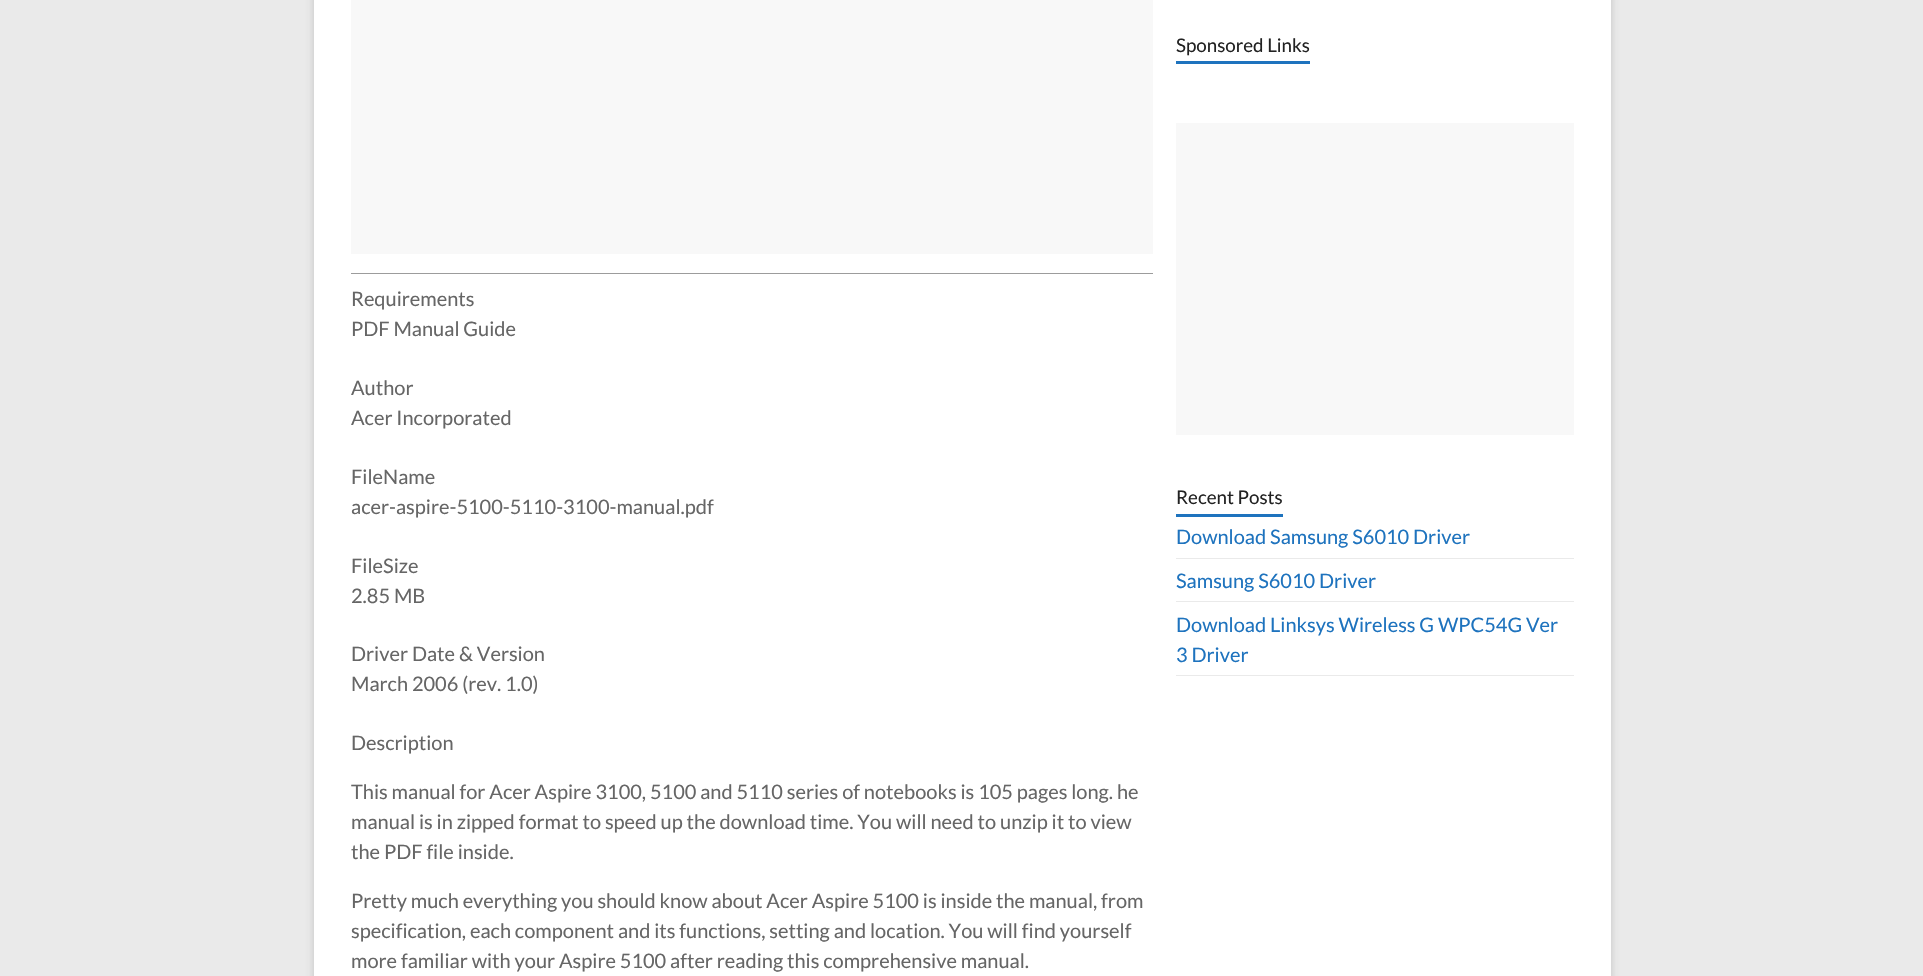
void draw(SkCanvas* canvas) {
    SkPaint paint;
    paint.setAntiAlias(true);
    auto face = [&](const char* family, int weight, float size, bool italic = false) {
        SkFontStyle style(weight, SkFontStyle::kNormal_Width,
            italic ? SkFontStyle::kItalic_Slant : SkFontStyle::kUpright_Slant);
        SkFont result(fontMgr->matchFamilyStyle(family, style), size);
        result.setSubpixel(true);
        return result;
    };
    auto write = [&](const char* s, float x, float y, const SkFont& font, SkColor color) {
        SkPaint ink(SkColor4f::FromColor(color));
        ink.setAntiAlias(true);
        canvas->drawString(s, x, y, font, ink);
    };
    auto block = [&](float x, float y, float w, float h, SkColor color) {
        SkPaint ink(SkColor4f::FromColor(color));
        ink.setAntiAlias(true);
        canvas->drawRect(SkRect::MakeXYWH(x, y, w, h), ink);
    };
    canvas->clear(SkColorSetRGB(234, 234, 234));
    paint.setColor(SkColorSetARGB(77, 100, 100, 100));
    paint.setMaskFilter(SkMaskFilter::MakeBlur(kNormal_SkBlurStyle, 4));
    canvas->drawRect(SkRect::MakeXYWH(314, -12, 1297, 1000), paint);
    paint.setMaskFilter(nullptr);
    block(314, 0, 1297, 976, SK_ColorWHITE);
    block(351, 0, 802, 254, SkColorSetRGB(248, 248, 248));
    block(351, 273, 802, 1, SkColorSetRGB(156, 156, 156));
    auto kFont1 = face("Lato", 400, 20);
    write("Requirements", 351, 306, kFont1, SkColorSetRGB(102, 102, 102));
    write("PDF Manual Guide", 351, 336, kFont1, SkColorSetRGB(102, 102, 102));
    write("Author", 351, 395, kFont1, SkColorSetRGB(102, 102, 102));
    write("Acer Incorporated", 351, 425, kFont1, SkColorSetRGB(102, 102, 102));
    write("FileName", 351, 484, kFont1, SkColorSetRGB(102, 102, 102));
    write("acer-aspire-5100-5110-3100-manual.pdf", 351, 514, kFont1, SkColorSetRGB(102, 102, 102));
    write("FileSize", 351, 573, kFont1, SkColorSetRGB(102, 102, 102));
    write("2.85 MB", 351, 603, kFont1, SkColorSetRGB(102, 102, 102));
    write("Driver Date & Version", 351, 661, kFont1, SkColorSetRGB(102, 102, 102));
    write("March 2006 (rev. 1.0)", 351, 691, kFont1, SkColorSetRGB(102, 102, 102));
    write("Description", 351, 750, kFont1, SkColorSetRGB(102, 102, 102));
    write("This manual for Acer Aspire 3100, 5100 and 5110 series of notebooks is 105 pages long. he", 351, 799, kFont1, SkColorSetRGB(102, 102, 102));
    write("manual is in zipped format to speed up the download time. You will need to unzip it to view", 351, 829, kFont1, SkColorSetRGB(102, 102, 102));
    write("the PDF file inside.", 351, 859, kFont1, SkColorSetRGB(102, 102, 102));
    write("Pretty much everything you should know about Acer Aspire 5100 is inside the manual, from", 351, 908, kFont1, SkColorSetRGB(102, 102, 102));
    write("specification, each component and its functions, setting and location. You will find yourself", 351, 938, kFont1, SkColorSetRGB(102, 102, 102));
    write("more familiar with your Aspire 5100 after reading this comprehensive manual.", 351, 968, kFont1, SkColorSetRGB(102, 102, 102));
    auto kFont2 = face("Lato", 400, 18.75f);
    write("Sponsored Links", 1176, 52, kFont2, SkColorSetRGB(34, 34, 34));
    block(1176, 61, 134, 3, SkColorSetRGB(30, 115, 190));
    block(1176, 123, 398, 312, SkColorSetRGB(248, 248, 248));
    write("Recent Posts", 1176, 504, kFont2, SkColorSetRGB(34, 34, 34));
    block(1176, 514, 107, 3, SkColorSetRGB(30, 115, 190));
    block(1176, 558, 398, 1, SkColorSetRGB(234, 234, 234));
    write("Download Samsung S6010 Driver", 1176, 544, kFont1, SkColorSetRGB(30, 115, 190));
    block(1176, 601, 398, 1, SkColorSetRGB(234, 234, 234));
    write("Samsung S6010 Driver", 1176, 588, kFont1, SkColorSetRGB(30, 115, 190));
    block(1176, 675, 398, 1, SkColorSetRGB(234, 234, 234));
    write("Download Linksys Wireless G WPC54G Ver", 1176, 632, kFont1, SkColorSetRGB(30, 115, 190));
    write("3 Driver", 1176, 662, kFont1, SkColorSetRGB(30, 115, 190));
}
